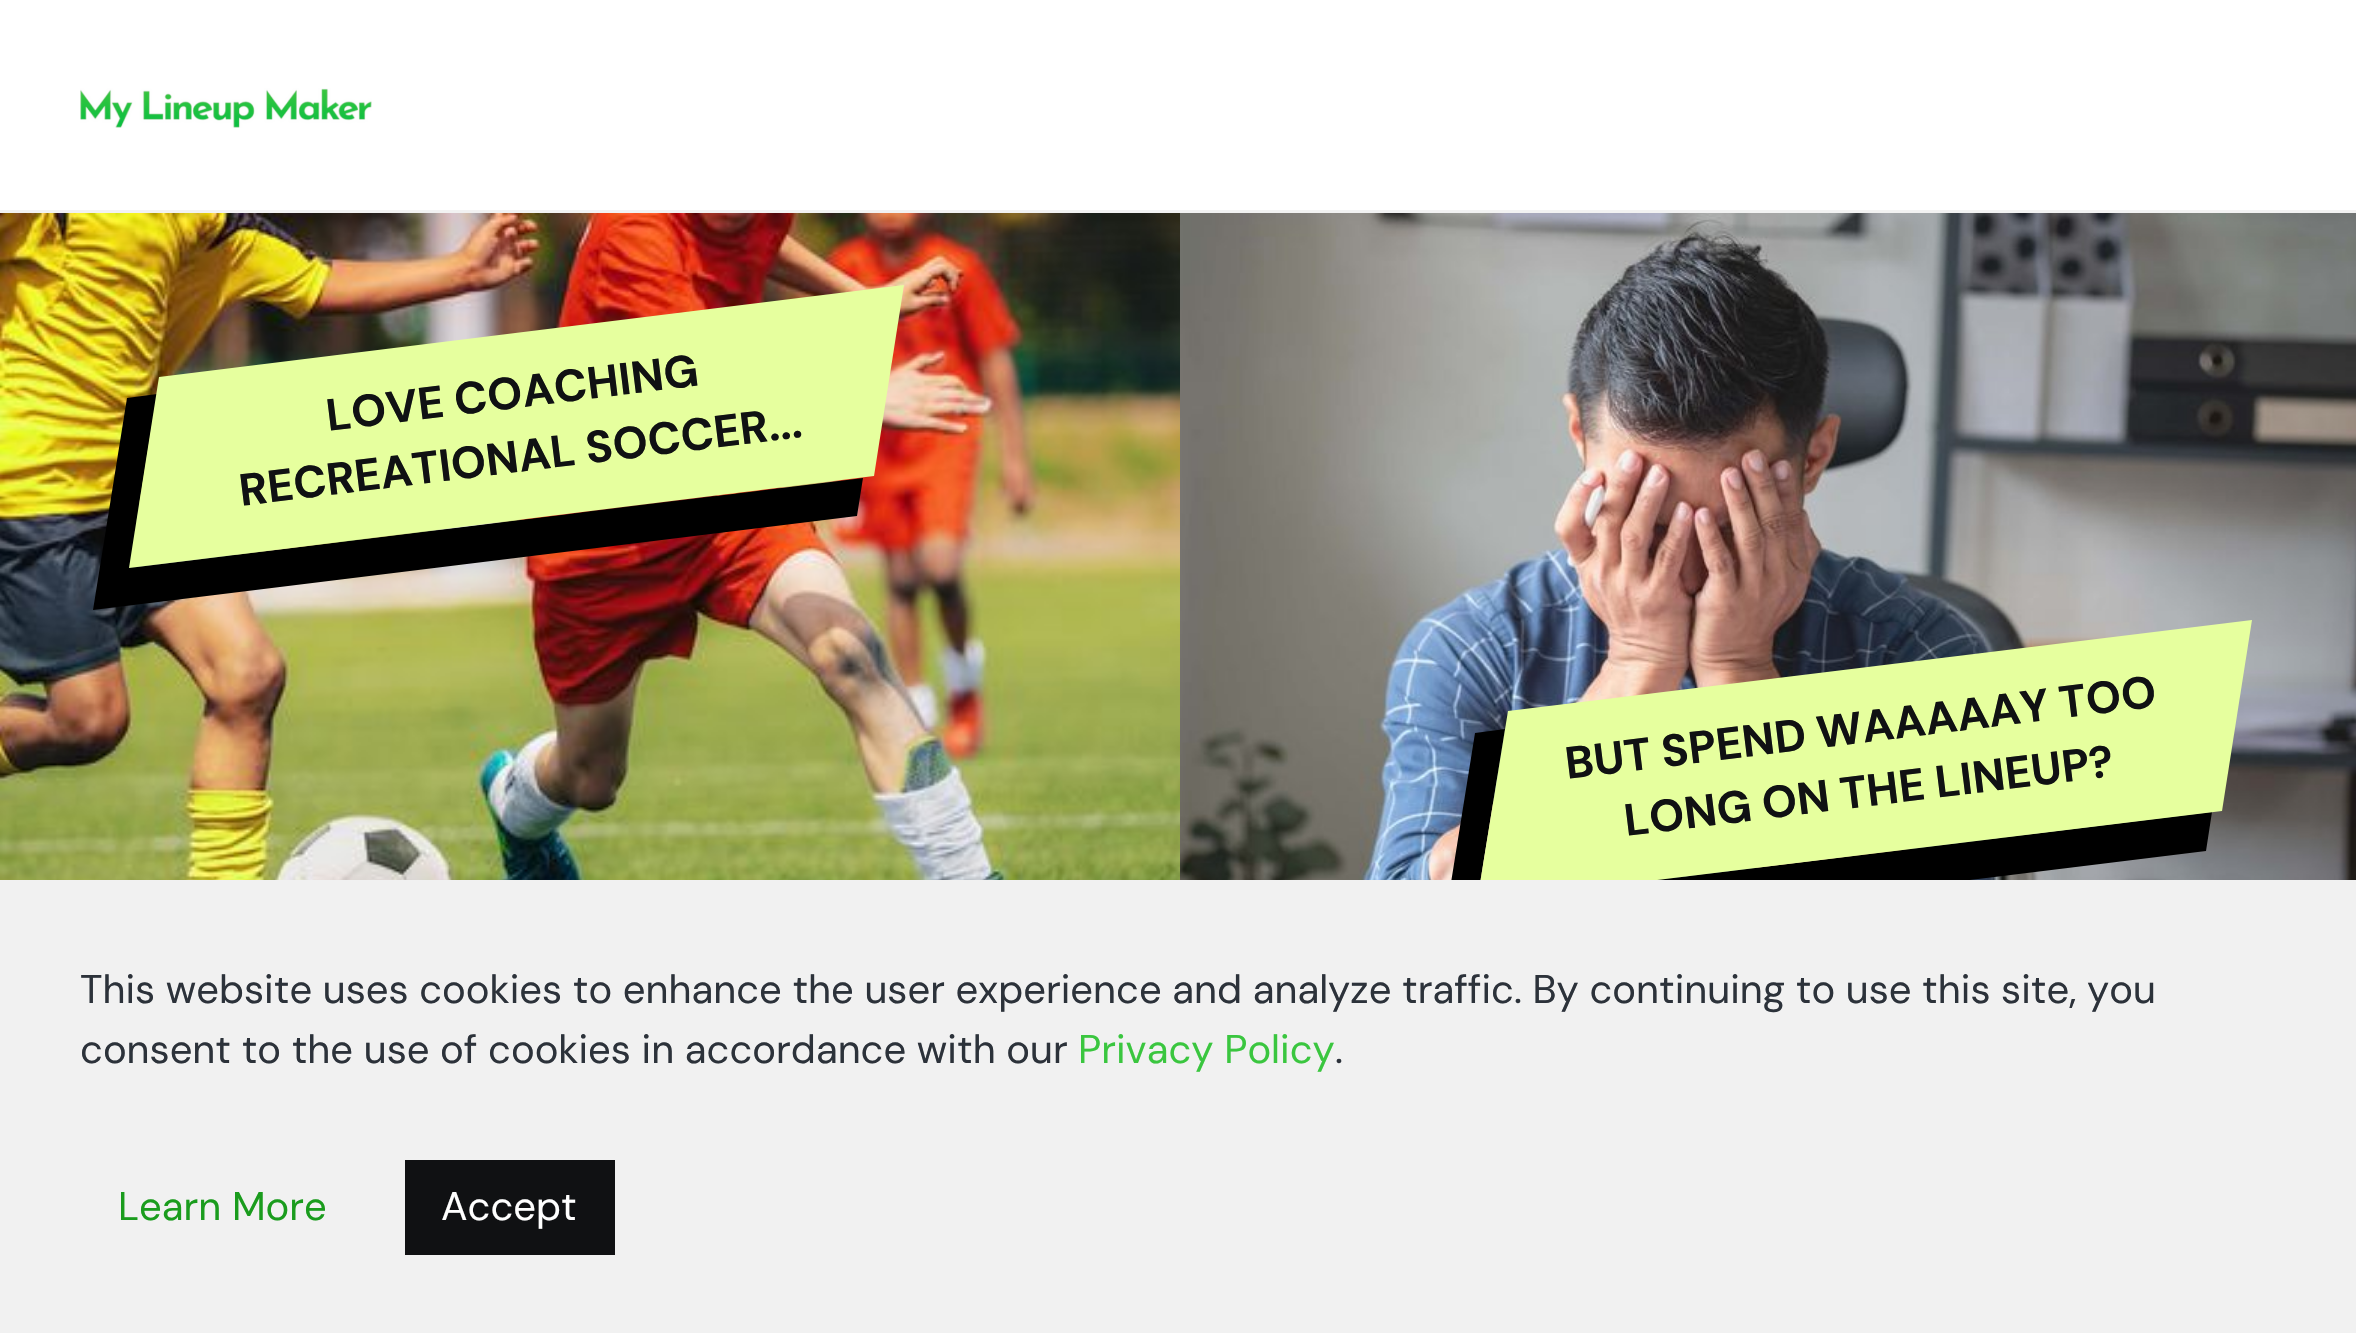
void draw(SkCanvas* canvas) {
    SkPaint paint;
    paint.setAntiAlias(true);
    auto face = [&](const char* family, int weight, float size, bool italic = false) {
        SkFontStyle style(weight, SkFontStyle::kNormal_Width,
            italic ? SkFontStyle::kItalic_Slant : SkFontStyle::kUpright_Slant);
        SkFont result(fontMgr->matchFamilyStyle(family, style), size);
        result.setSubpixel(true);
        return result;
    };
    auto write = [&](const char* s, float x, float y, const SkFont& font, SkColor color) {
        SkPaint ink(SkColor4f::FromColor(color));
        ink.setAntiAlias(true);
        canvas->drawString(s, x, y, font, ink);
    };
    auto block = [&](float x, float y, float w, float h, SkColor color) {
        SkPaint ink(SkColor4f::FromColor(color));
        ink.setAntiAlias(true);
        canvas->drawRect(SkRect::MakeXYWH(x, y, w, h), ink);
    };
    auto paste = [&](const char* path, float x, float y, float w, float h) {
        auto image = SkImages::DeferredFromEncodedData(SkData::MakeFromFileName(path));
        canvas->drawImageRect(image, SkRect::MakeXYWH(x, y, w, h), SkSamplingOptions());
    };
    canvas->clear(SK_ColorWHITE);
    block(0, 210, 2356, 3, SkColorSetRGB(242, 242, 242));
    paste("pic1.png", 80, 88, 292, 40);
    paste("pic2.png", 0, 213, 1180, 667);
    paint.setColor(SK_ColorBLACK);
    canvas->drawPath(SkPathBuilder().moveTo(127, 398).lineTo(93, 610).lineTo(857, 516).lineTo(863, 478).lineTo(129, 568).lineTo(157, 394).close().detach(), paint);
    paint.setColor(SkColorSetRGB(230, 255, 158));
    canvas->drawPath(SkPathBuilder().moveTo(159, 377).lineTo(904, 285).lineTo(874, 476).lineTo(129, 568).close().detach(), paint);
    auto kFont1 = face("DM Sans", 700, 45);
    canvas->save();
    canvas->rotate(-7, 328, 431);
    write("LOVE COACHING", 328, 431, kFont1, SkColorSetRGB(16, 17, 19));
    canvas->restore();
    canvas->save();
    canvas->rotate(-7, 241, 506);
    write("RECREATIONAL SOCCER...", 241, 506, kFont1, SkColorSetRGB(16, 17, 19));
    canvas->restore();
    paste("pic3.png", 1180, 213, 1176, 667);
    paint.setColor(SK_ColorBLACK);
    canvas->drawPath(SkPathBuilder().moveTo(1475, 733).lineTo(1441, 945).lineTo(2206, 851).lineTo(2212, 812).lineTo(1477, 902).lineTo(1505, 729).close().detach(), paint);
    paint.setColor(SkColorSetRGB(230, 255, 158));
    canvas->drawPath(SkPathBuilder().moveTo(1508, 711).lineTo(2252, 620).lineTo(2222, 811).lineTo(1477, 902).close().detach(), paint);
    canvas->save();
    canvas->rotate(-7, 1567, 779);
    write("BUT SPEND WAAAAAY TOO", 1567, 779, kFont1, SkColorSetRGB(16, 17, 19));
    canvas->restore();
    canvas->save();
    canvas->rotate(-7, 1626, 836);
    write("LONG ON THE LINEUP?", 1626, 836, kFont1, SkColorSetRGB(16, 17, 19));
    canvas->restore();
    block(0, 880, 2356, 453, SkColorSetRGB(241, 241, 241));
    auto kFont2 = face("DM Sans", 400, 40);
    write("This website uses cookies to enhance the user experience and analyze traffic. By continuing to use this site, you", 80, 1003, kFont2, SkColorSetRGB(44, 50, 58));
    write("consent to the use of cookies in accordance with our", 80, 1063, kFont2, SkColorSetRGB(44, 50, 58));
    write("Privacy Policy", 1078, 1063, kFont2, SkColorSetRGB(58, 198, 63));
    write(".", 1335, 1063, kFont2, SkColorSetRGB(44, 50, 58));
    write("Learn More", 118, 1220, kFont2, SkColorSetRGB(26, 156, 29));
    block(405, 1160, 210, 95, SkColorSetRGB(16, 17, 19));
    write("Accept", 441, 1220, kFont2, SK_ColorWHITE);
}
